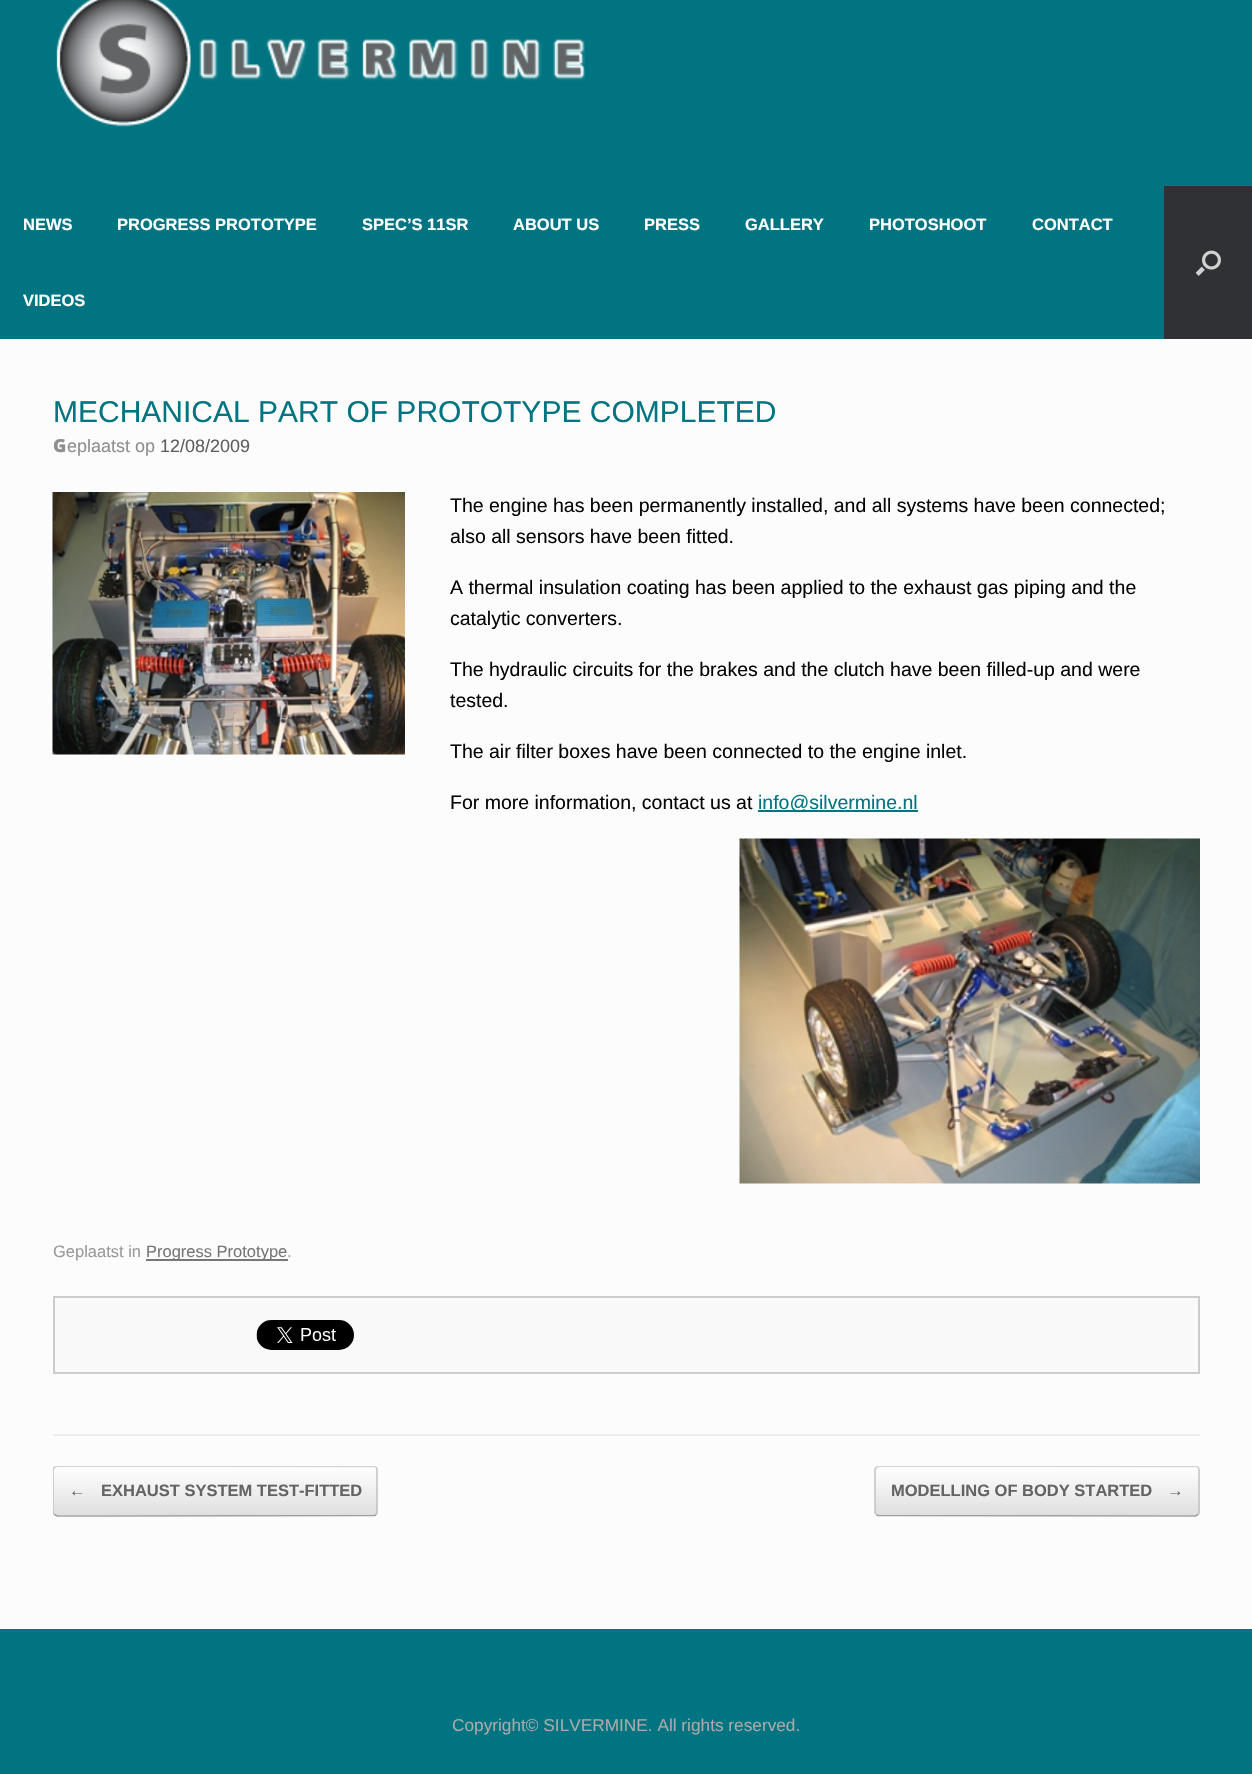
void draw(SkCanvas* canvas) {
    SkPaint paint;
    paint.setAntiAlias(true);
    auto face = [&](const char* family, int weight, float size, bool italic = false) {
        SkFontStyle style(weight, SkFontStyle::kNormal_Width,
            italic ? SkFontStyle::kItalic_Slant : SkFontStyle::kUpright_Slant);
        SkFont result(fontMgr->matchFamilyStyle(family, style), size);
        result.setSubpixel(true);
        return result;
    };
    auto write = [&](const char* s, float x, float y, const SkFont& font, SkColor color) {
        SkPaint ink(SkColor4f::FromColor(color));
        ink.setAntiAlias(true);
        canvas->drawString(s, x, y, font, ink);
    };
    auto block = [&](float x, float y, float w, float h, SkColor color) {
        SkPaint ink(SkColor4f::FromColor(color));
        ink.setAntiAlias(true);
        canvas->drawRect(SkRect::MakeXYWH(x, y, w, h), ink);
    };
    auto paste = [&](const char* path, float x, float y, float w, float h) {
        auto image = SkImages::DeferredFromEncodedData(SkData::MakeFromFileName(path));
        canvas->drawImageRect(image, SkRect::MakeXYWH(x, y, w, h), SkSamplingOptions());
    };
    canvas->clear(SkColorSetRGB(0, 116, 129));
    paste("pic1.png", 56, 0, 529, 127);
    auto kFont1 = face("Liberation Sans", 700, 16.5f);
    write("NEWS", 23, 230, kFont1, SK_ColorWHITE);
    write("PROGRESS PROTOTYPE", 117, 230, kFont1, SK_ColorWHITE);
    write("SPEC’S 11SR", 362, 230, kFont1, SK_ColorWHITE);
    write("ABOUT US", 513, 230, kFont1, SK_ColorWHITE);
    write("PRESS", 644, 230, kFont1, SK_ColorWHITE);
    write("GALLERY", 745, 230, kFont1, SK_ColorWHITE);
    write("PHOTOSHOOT", 869, 230, kFont1, SK_ColorWHITE);
    write("CONTACT", 1032, 230, kFont1, SK_ColorWHITE);
    write("VIDEOS", 23, 306, kFont1, SK_ColorWHITE);
    block(1164, 186, 88, 153, SkColorSetRGB(48, 49, 52));
    paste("pic2.png", 1195, 250, 26, 26);
    block(0, 339, 1252, 1290, SkColorSetRGB(252, 252, 252));
    block(53, 1434, 1147, 2, SkColorSetRGB(238, 238, 238));
    auto kFont2 = face("Liberation Sans", 400, 30);
    write("MECHANICAL PART OF PROTOTYPE COMPLETED", 53, 422, kFont2, SkColorSetRGB(0, 116, 129));
    auto kFont3 = face("Noto Sans", 900, 18);
    write("G", 53, 452, kFont3, SkColorSetRGB(143, 143, 143));
    auto kFont4 = face("Liberation Sans", 400, 18);
    write("eplaatst op", 67, 452, kFont4, SkColorSetRGB(143, 143, 143));
    write("12/08/2009", 160, 452, kFont4, SkColorSetRGB(94, 94, 94));
    paste("pic3.png", 52, 492, 353, 263);
    auto kFont5 = face("Liberation Sans", 400, 19.5f);
    write("The engine has been permanently installed, and all systems have been connected;", 450, 512, kFont5, SkColorSetRGB(5, 5, 5));
    write("also all sensors have been fitted.", 450, 543, kFont5, SkColorSetRGB(5, 5, 5));
    write("A thermal insulation coating has been applied to the exhaust gas piping and the", 450, 594, kFont5, SkColorSetRGB(5, 5, 5));
    write("catalytic converters.", 450, 625, kFont5, SkColorSetRGB(5, 5, 5));
    write("The hydraulic circuits for the brakes and the clutch have been filled-up and were", 450, 676, kFont5, SkColorSetRGB(5, 5, 5));
    write("tested.", 450, 707, kFont5, SkColorSetRGB(5, 5, 5));
    write("The air filter boxes have been connected to the engine inlet.", 450, 758, kFont5, SkColorSetRGB(5, 5, 5));
    write("For more information, contact us at", 450, 809, kFont5, SkColorSetRGB(5, 5, 5));
    block(758, 810, 160, 2, SkColorSetRGB(0, 116, 129));
    write("info@silvermine.nl", 758, 809, kFont5, SkColorSetRGB(0, 116, 129));
    paste("pic4.png", 739, 838, 461, 346);
    auto kFont6 = face("Liberation Sans", 400, 16.5f);
    write("Geplaatst in", 53, 1257, kFont6, SkColorSetRGB(153, 153, 153));
    block(146, 1259, 142, 2, SkColorSetRGB(119, 119, 119));
    write("Progress Prototype", 146, 1257, kFont6, SkColorSetRGB(119, 119, 119));
    write(".", 287, 1257, kFont6, SkColorSetRGB(153, 153, 153));
    paint.setColor(SkColorSetRGB(249, 249, 249));
    canvas->drawRect(SkRect::MakeXYWH(54, 1297, 1145, 76), paint);
    paint.setStyle(SkPaint::kStroke_Style);
    paint.setStrokeWidth(2);
    paint.setColor(SkColorSetRGB(204, 204, 204));
    canvas->drawRect(SkRect::MakeXYWH(54, 1297, 1145, 76), paint);
    paste("pic5.png", 256, 1320, 98, 30);
    canvas->save();
    canvas->clipPath(SkPathBuilder().moveTo(58, 1466).lineTo(373, 1466).cubicTo(376, 1466, 378, 1468, 378, 1471).lineTo(378, 1512).cubicTo(378, 1515, 376, 1517, 373, 1517).lineTo(58, 1517).cubicTo(55, 1517, 53, 1515, 53, 1512).lineTo(53, 1471).cubicTo(53, 1468, 55, 1466, 58, 1466).close().detach(), true);
    paint.setStyle(SkPaint::kFill_Style);
    {
        const SkColor colors[] = {SkColorSetRGB(223, 223, 223), SK_ColorWHITE};
        const float stops[] = {0, 1};
        const SkPoint ends[] = {{54, 1515}, {54, 1467}};
        paint.setShader(SkGradientShader::MakeLinear(ends, colors, stops, 2, SkTileMode::kClamp));
        paint.setAlpha(255);
    }
    canvas->drawRect(SkRect::MakeXYWH(53, 1467, 325, 48), paint);
    {
        const SkColor colors[] = {SkColorSetRGB(223, 223, 223), SK_ColorWHITE};
        const float stops[] = {0, 1};
        const SkPoint ends[] = {{54, 1563}, {54, 1515}};
        paint.setShader(SkGradientShader::MakeLinear(ends, colors, stops, 2, SkTileMode::kClamp));
        paint.setAlpha(255);
    }
    canvas->drawRect(SkRect::MakeXYWH(53, 1515, 325, 2), paint);
    canvas->restore();
    canvas->save();
    canvas->clipRect(SkRect::MakeXYWH(53, 1466, 1147, 51));
    paint.setStyle(SkPaint::kStroke_Style);
    paint.setStrokeWidth(1.5f);
    paint.setShader(nullptr);
    paint.setColor(SkColorSetRGB(210, 210, 210));
    canvas->drawPath(SkPathBuilder().moveTo(54.5f, 1467.5f).lineTo(57, 1466).lineTo(375, 1466.5f).lineTo(376, 1467.5f).detach(), paint);
    canvas->restore();
    paint.setColor(SkColorSetRGB(195, 195, 195));
    canvas->drawPath(SkPathBuilder().moveTo(376, 1467.5f).cubicTo(377, 1468, 377, 1469, 377, 1470).lineTo(377, 1512).cubicTo(377, 1513, 377, 1514, 376, 1514.5f).detach(), paint);
    paint.setColor(SkColorSetRGB(159, 159, 159));
    canvas->drawPath(SkPathBuilder().moveTo(376, 1514.5f).lineTo(375, 1515.5f).lineTo(110, 1516).lineTo(57, 1516).lineTo(54.5f, 1514.5f).detach(), paint);
    canvas->save();
    canvas->clipRect(SkRect::MakeXYWH(53, 1466, 1147, 51));
    paint.setColor(SkColorSetRGB(195, 195, 195));
    canvas->drawPath(SkPathBuilder().moveTo(54.5f, 1514.5f).cubicTo(53.5f, 1514, 53, 1513, 53, 1512).lineTo(53, 1470).cubicTo(53, 1469, 53.5f, 1468, 54.5f, 1467.5f).detach(), paint);
    canvas->restore();
    write("←", 69, 1496, kFont1, SkColorSetRGB(100, 100, 100));
    write("EXHAUST SYSTEM TEST-FITTED", 101, 1496, kFont1, SkColorSetRGB(100, 100, 100));
    canvas->save();
    canvas->clipPath(SkPathBuilder().moveTo(880, 1466).lineTo(1195, 1466).cubicTo(1198, 1466, 1200, 1468, 1200, 1471).lineTo(1200, 1512).cubicTo(1200, 1515, 1198, 1517, 1195, 1517).lineTo(880, 1517).cubicTo(877, 1517, 875, 1515, 875, 1512).lineTo(875, 1471).cubicTo(875, 1468, 877, 1466, 880, 1466).close().detach(), true);
    paint.setStyle(SkPaint::kFill_Style);
    {
        const SkColor colors[] = {SkColorSetRGB(223, 223, 223), SK_ColorWHITE};
        const float stops[] = {0, 1};
        const SkPoint ends[] = {{876, 1515}, {876, 1467}};
        paint.setShader(SkGradientShader::MakeLinear(ends, colors, stops, 2, SkTileMode::kClamp));
        paint.setAlpha(255);
    }
    canvas->drawRect(SkRect::MakeXYWH(875, 1467, 325, 48), paint);
    {
        const SkColor colors[] = {SkColorSetRGB(223, 223, 223), SK_ColorWHITE};
        const float stops[] = {0, 1};
        const SkPoint ends[] = {{876, 1563}, {876, 1515}};
        paint.setShader(SkGradientShader::MakeLinear(ends, colors, stops, 2, SkTileMode::kClamp));
        paint.setAlpha(255);
    }
    canvas->drawRect(SkRect::MakeXYWH(875, 1515, 325, 2), paint);
    canvas->restore();
    canvas->save();
    canvas->clipRect(SkRect::MakeXYWH(53, 1466, 1147, 51));
    paint.setStyle(SkPaint::kStroke_Style);
    paint.setShader(nullptr);
    paint.setColor(SkColorSetRGB(210, 210, 210));
    canvas->drawPath(SkPathBuilder().moveTo(876.5f, 1467.5f).lineTo(879, 1466).lineTo(1197, 1466.5f).lineTo(1198, 1467.5f).detach(), paint);
    canvas->restore();
    paint.setColor(SkColorSetRGB(195, 195, 195));
    canvas->drawPath(SkPathBuilder().moveTo(1198, 1467.5f).cubicTo(1199, 1468, 1199, 1469, 1199, 1470).lineTo(1199, 1512).cubicTo(1199, 1513, 1199, 1514, 1198, 1514.5f).detach(), paint);
    paint.setColor(SkColorSetRGB(159, 159, 159));
    canvas->drawPath(SkPathBuilder().moveTo(1198, 1514.5f).lineTo(1195.5f, 1516).lineTo(877.5f, 1515.5f).lineTo(876.5f, 1514.5f).detach(), paint);
    paint.setColor(SkColorSetRGB(195, 195, 195));
    canvas->drawPath(SkPathBuilder().moveTo(876.5f, 1514.5f).cubicTo(875.5f, 1514, 875, 1513, 875, 1512).lineTo(875, 1470).cubicTo(875, 1469, 875.5f, 1468, 876.5f, 1467.5f).detach(), paint);
    write("MODELLING OF BODY STARTED", 891, 1496, kFont1, SkColorSetRGB(100, 100, 100));
    write("→", 1167, 1496, kFont1, SkColorSetRGB(100, 100, 100));
    auto kFont7 = face("Liberation Sans", 400, 17.25f);
    write("Copyright© SILVERMINE. All rights reserved.", 452, 1731, kFont7, SkColorSetRGB(170, 170, 170));
}
